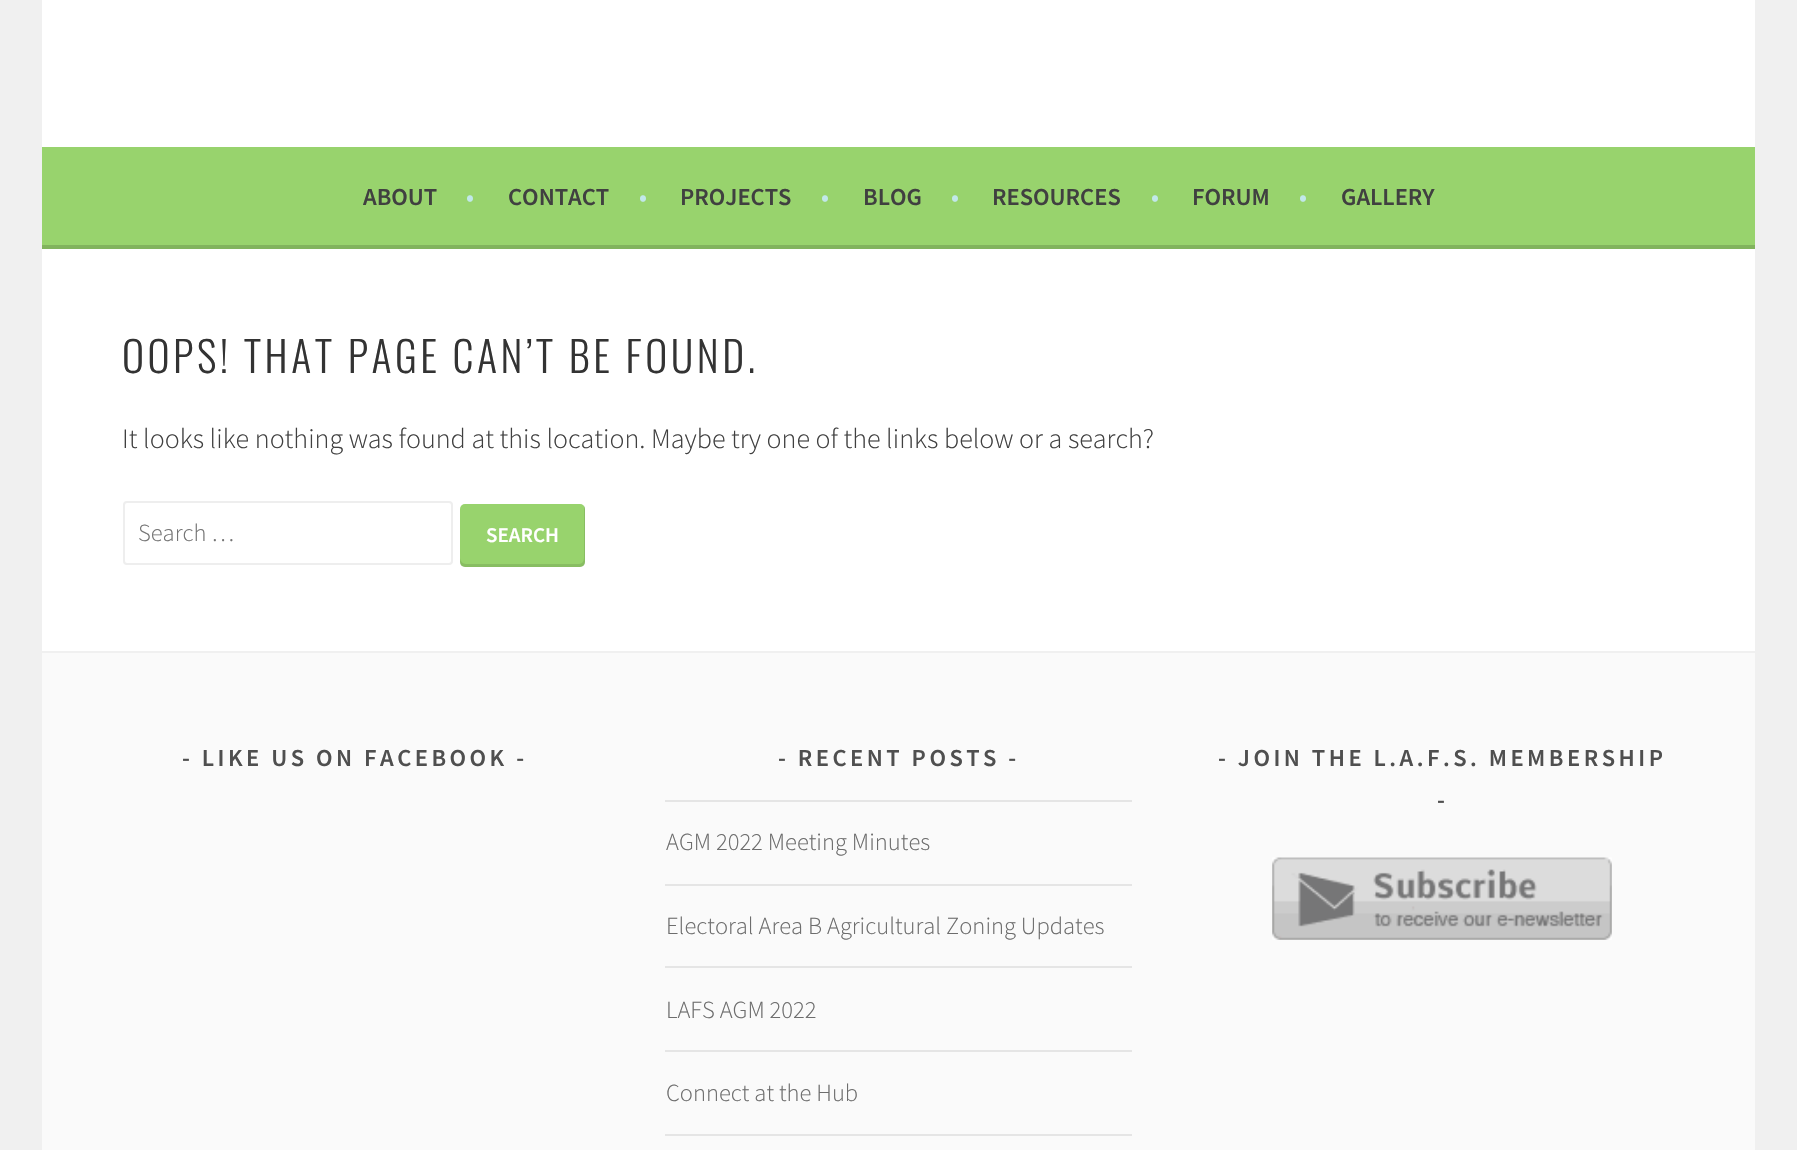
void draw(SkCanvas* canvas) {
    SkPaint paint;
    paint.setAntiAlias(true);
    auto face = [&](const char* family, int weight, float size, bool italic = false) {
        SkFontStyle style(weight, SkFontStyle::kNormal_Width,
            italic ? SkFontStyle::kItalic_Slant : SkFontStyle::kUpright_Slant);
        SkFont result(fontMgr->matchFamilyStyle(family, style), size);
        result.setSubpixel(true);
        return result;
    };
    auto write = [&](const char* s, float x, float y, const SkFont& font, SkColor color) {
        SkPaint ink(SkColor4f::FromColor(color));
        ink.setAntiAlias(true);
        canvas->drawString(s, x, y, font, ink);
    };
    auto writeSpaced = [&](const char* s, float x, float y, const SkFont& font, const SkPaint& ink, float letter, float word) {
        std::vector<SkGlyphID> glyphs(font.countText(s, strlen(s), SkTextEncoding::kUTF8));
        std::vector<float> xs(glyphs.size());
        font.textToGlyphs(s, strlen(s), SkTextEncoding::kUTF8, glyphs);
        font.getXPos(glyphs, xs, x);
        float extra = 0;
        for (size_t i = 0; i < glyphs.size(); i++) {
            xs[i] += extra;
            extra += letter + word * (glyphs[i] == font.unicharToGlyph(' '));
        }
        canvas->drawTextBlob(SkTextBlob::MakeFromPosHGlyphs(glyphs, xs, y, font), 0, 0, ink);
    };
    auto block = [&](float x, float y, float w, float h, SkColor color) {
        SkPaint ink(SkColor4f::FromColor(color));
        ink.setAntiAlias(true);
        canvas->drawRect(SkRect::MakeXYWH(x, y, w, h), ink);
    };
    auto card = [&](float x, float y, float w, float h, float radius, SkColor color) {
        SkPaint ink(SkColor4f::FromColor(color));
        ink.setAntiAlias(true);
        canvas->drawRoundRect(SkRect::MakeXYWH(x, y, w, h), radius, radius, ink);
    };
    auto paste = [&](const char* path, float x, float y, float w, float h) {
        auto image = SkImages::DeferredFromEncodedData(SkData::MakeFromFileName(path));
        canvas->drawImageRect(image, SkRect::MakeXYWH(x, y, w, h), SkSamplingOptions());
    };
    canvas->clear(SkColorSetRGB(240, 240, 240));
    block(42, 0, 1713, 147, SK_ColorWHITE);
    block(42, 147, 1713, 98, SkColorSetRGB(152, 211, 109));
    block(42, 245, 1713, 4, SkColorSetRGB(129, 179, 93));
    auto kFont1 = face("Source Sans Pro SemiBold", 600, 24.5f);
    write("ABOUT", 363, 205, kFont1, SkColorSetRGB(64, 64, 64));
    write("•", 466, 205, kFont1, SkColorSetRGB(193, 232, 234));
    write("CONTACT", 508, 205, kFont1, SkColorSetRGB(64, 64, 64));
    write("•", 639, 205, kFont1, SkColorSetRGB(193, 232, 234));
    write("PROJECTS", 680, 205, kFont1, SkColorSetRGB(64, 64, 64));
    write("•", 821, 205, kFont1, SkColorSetRGB(193, 232, 234));
    write("BLOG", 863, 205, kFont1, SkColorSetRGB(64, 64, 64));
    write("•", 951, 205, kFont1, SkColorSetRGB(193, 232, 234));
    write("RESOURCES", 992, 205, kFont1, SkColorSetRGB(64, 64, 64));
    write("•", 1151, 205, kFont1, SkColorSetRGB(193, 232, 234));
    write("FORUM", 1192, 205, kFont1, SkColorSetRGB(64, 64, 64));
    write("•", 1299, 205, kFont1, SkColorSetRGB(193, 232, 234));
    write("GALLERY", 1341, 205, kFont1, SkColorSetRGB(64, 64, 64));
    block(42, 249, 1713, 402, SK_ColorWHITE);
    auto kFont2 = face("Oswald", 300, 42);
    paint.setColor(SkColorSetRGB(51, 51, 51));
    writeSpaced("OOPS! THAT PAGE CAN’T BE FOUND.", 122, 373, kFont2, paint, 3.5f, 0);
    auto kFont3 = face("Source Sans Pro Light", 300, 28);
    write("It looks like nothing was found at this location. Maybe try one of the links below or a search?", 122, 448, kFont3, SkColorSetRGB(64, 64, 64));
    paint.setStyle(SkPaint::kStroke_Style);
    paint.setStrokeWidth(2);
    paint.setColor(SkColorSetRGB(238, 238, 238));
    canvas->drawRoundRect(SkRect::MakeXYWH(124, 502, 328, 62), 3, 3, paint);
    auto kFont4 = face("Source Sans Pro Light", 300, 24.5f);
    write("Search …", 138, 541, kFont4, SkColorSetRGB(117, 117, 117));
    card(460, 504, 125, 63, 5, SkColorSetRGB(152, 211, 109));
    paint.setStyle(SkPaint::kFill_Style);
    paint.setColor(SkColorSetARGB(26, 0, 0, 0));
    canvas->drawPath(SkPathBuilder().moveTo(460, 558).lineTo(460, 562).cubicTo(460, 565, 462, 567, 465, 567).lineTo(580, 567).cubicTo(583, 567, 585, 565, 585, 562).lineTo(585, 509).cubicTo(585, 508, 585, 507, 584, 506).lineTo(584, 558).cubicTo(584, 561, 582, 564, 579, 564).lineTo(466, 564).cubicTo(463, 564, 460, 561, 460, 558).close().detach(), paint);
    auto kFont5 = face("Source Sans Pro SemiBold", 600, 21);
    write("SEARCH", 486, 542, kFont5, SK_ColorWHITE);
    block(42, 653, 1713, 497, SkColorSetRGB(250, 250, 250));
    paint.setColor(SkColorSetRGB(79, 79, 79));
    writeSpaced("- LIKE US ON FACEBOOK -", 182, 766, kFont1, paint, 3.5f, 0);
    writeSpaced("- RECENT POSTS -", 778, 766, kFont1, paint, 3.5f, 0);
    block(665, 800, 467, 2, SkColorSetRGB(229, 229, 229));
    write("AGM 2022 Meeting Minutes", 666, 850, kFont4, SkColorSetRGB(109, 109, 109));
    block(665, 884, 467, 2, SkColorSetRGB(229, 229, 229));
    write("Electoral Area B Agricultural Zoning Updates", 666, 934, kFont4, SkColorSetRGB(109, 109, 109));
    block(665, 966, 467, 2, SkColorSetRGB(229, 229, 229));
    write("LAFS AGM 2022", 666, 1018, kFont4, SkColorSetRGB(109, 109, 109));
    block(665, 1050, 467, 2, SkColorSetRGB(229, 229, 229));
    write("Connect at the Hub", 666, 1101, kFont4, SkColorSetRGB(109, 109, 109));
    block(665, 1134, 467, 2, SkColorSetRGB(229, 229, 229));
    writeSpaced("- JOIN THE L.A.F.S. MEMBERSHIP", 1218, 766, kFont1, paint, 3.5f, 0);
    writeSpaced("-", 1437, 808, kFont1, paint, 3.5f, 0);
    paste("pic1.png", 1272, 857, 340, 83);
}
